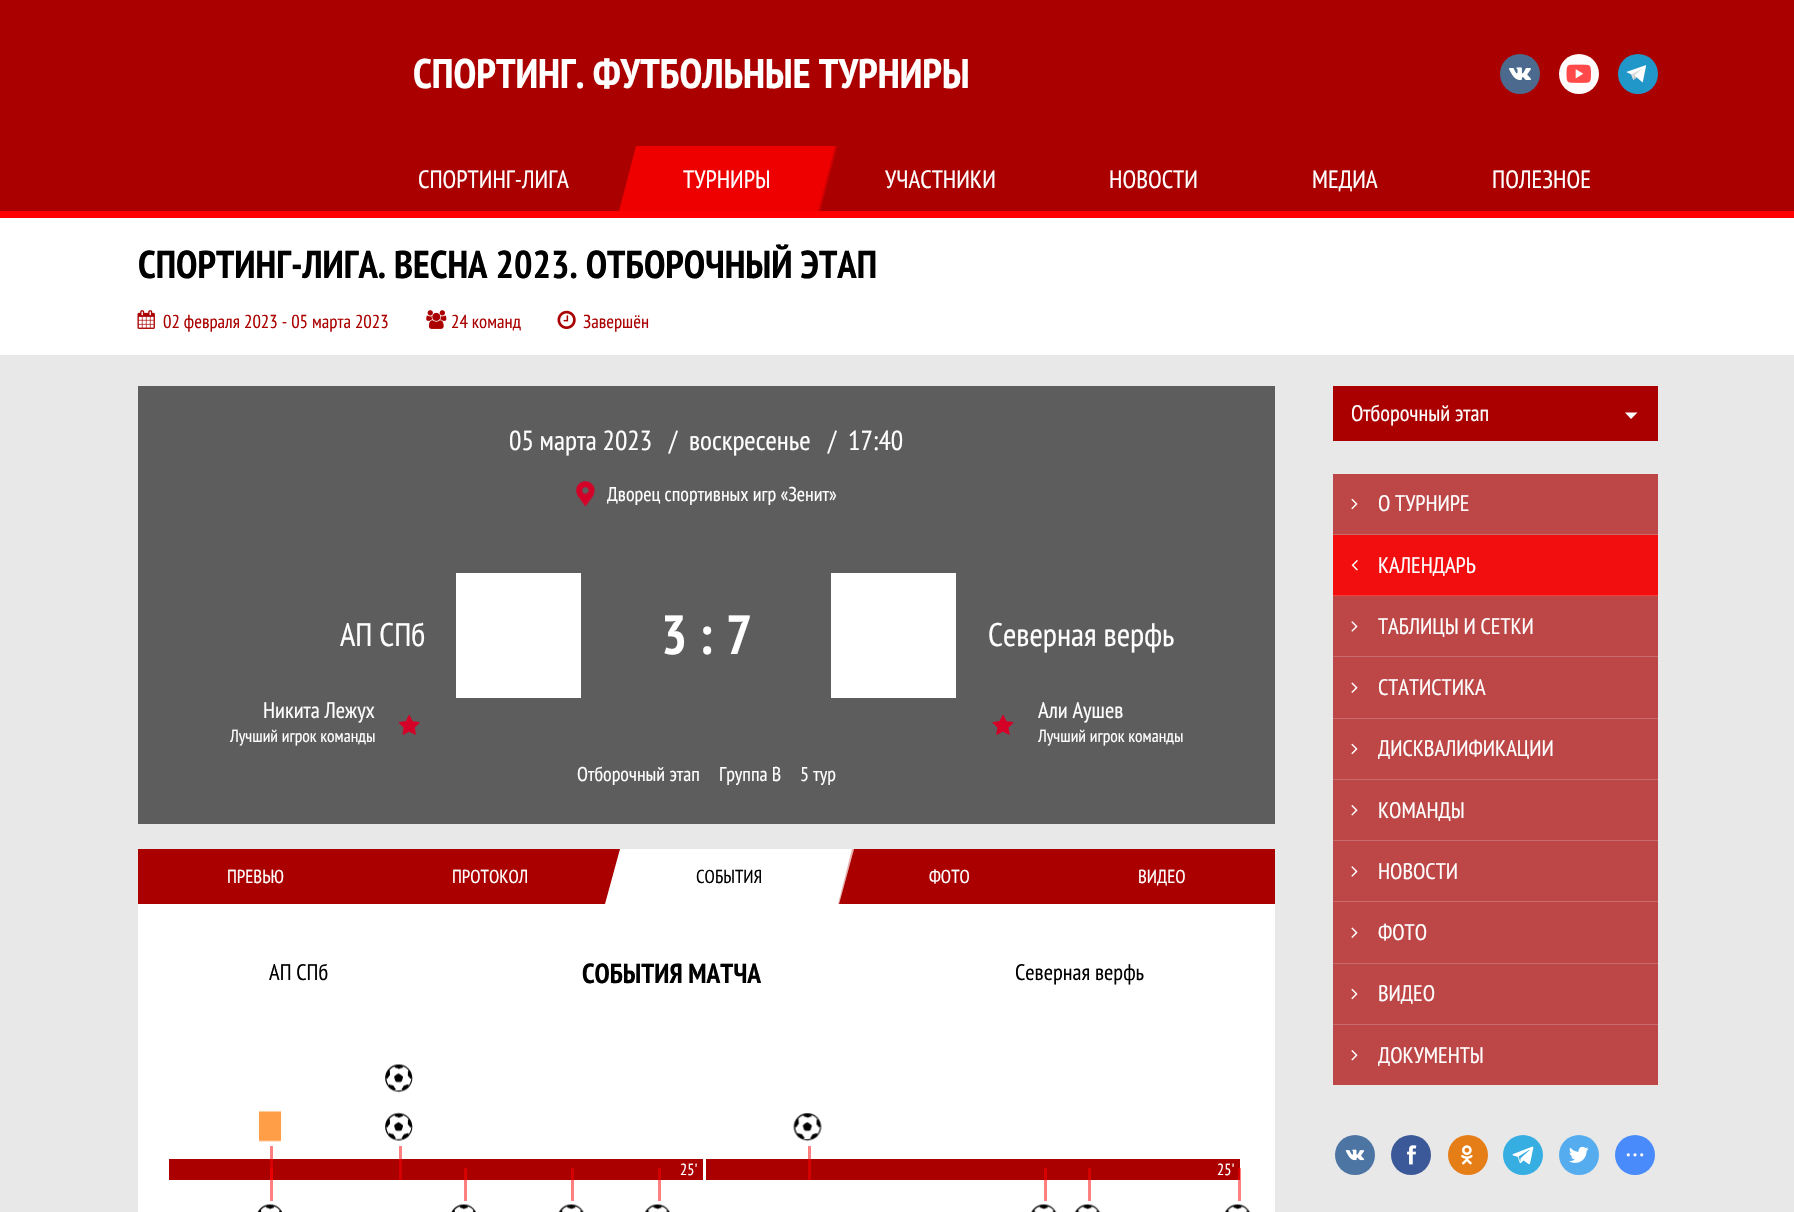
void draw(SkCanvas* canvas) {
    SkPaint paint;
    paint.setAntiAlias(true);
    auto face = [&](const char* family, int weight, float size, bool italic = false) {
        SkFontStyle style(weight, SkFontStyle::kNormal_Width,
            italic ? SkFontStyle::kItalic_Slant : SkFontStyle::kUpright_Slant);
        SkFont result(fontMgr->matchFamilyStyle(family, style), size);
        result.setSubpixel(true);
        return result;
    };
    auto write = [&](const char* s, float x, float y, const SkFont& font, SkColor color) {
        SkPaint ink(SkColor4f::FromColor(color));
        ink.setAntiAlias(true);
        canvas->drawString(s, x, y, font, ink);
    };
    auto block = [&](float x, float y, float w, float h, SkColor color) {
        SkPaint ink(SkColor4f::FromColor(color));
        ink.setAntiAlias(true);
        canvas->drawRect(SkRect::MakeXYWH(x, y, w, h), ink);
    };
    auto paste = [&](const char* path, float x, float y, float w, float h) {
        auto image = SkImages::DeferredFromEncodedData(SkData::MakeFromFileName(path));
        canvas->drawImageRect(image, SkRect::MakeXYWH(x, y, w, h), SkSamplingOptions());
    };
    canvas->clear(SkColorSetRGB(232, 232, 232));
    block(0, 0, 1794, 211, SkColorSetRGB(170, 0, 0));
    auto kFont1 = face("PT Sans Narrow", 700, 41.25f);
    write("СПОРТИНГ. ФУТБОЛЬНЫЕ ТУРНИРЫ", 413, 88, kFont1, SK_ColorWHITE);
    paint.setColor(SkColorSetRGB(75, 106, 141));
    canvas->drawCircle(1520, 74, 20, paint);
    paste("pic1.png", 1509, 67, 22, 14);
    paint.setColor(SkColorSetRGB(254, 252, 252));
    canvas->drawCircle(1579, 74, 20, paint);
    paste("pic2.png", 1566, 64, 25, 19);
    paint.setColor(SkColorSetRGB(33, 150, 200));
    canvas->drawCircle(1638, 74, 20, paint);
    paste("pic3.png", 1626, 65, 20, 18);
    auto kFont2 = face("PT Sans Narrow", 400, 25);
    write("СПОРТИНГ-ЛИГА", 418, 188, kFont2, SK_ColorWHITE);
    paint.setColor(SkColorSetRGB(238, 0, 0));
    canvas->drawPath(SkPathBuilder().moveTo(636, 146).lineTo(837, 146).lineTo(820, 211).lineTo(619, 211).close().detach(), paint);
    paint.setColor(SkColorSetARGB(115, 170, 0, 0));
    canvas->drawPath(SkPathBuilder().moveTo(835, 146).lineTo(837, 146).lineTo(820, 211).lineTo(818, 211).close().detach(), paint);
    write("ТУРНИРЫ", 683, 188, kFont2, SK_ColorWHITE);
    write("УЧАСТНИКИ", 885, 188, kFont2, SK_ColorWHITE);
    write("НОВОСТИ", 1109, 188, kFont2, SK_ColorWHITE);
    write("МЕДИА", 1312, 188, kFont2, SK_ColorWHITE);
    write("ПОЛЕЗНОЕ", 1492, 188, kFont2, SK_ColorWHITE);
    block(0, 211, 1794, 7, SkColorSetRGB(255, 0, 0));
    block(0, 218, 1794, 137, SK_ColorWHITE);
    auto kFont3 = face("PT Sans Narrow", 700, 38.75f);
    write("СПОРТИНГ-ЛИГА. ВЕСНА 2023. ОТБОРОЧНЫЙ ЭТАП", 138, 278, kFont3, SK_ColorBLACK);
    paste("pic4.png", 137, 310, 18, 19);
    auto kFont4 = face("PT Sans Narrow", 400, 18.75f);
    write("02 февраля 2023 - 05 марта 2023", 163, 328, kFont4, SkColorSetRGB(170, 0, 0));
    paste("pic5.png", 426, 310, 21, 19);
    write("24 команд", 451, 328, kFont4, SkColorSetRGB(170, 0, 0));
    paste("pic6.png", 557, 310, 19, 19);
    write("Завершён", 583, 328, kFont4, SkColorSetRGB(170, 0, 0));
    block(138, 386, 1137, 438, SkColorSetRGB(93, 93, 93));
    auto kFont5 = face("PT Sans Narrow", 400, 27.5f);
    write("05 марта 2023", 509, 450, kFont5, SK_ColorWHITE);
    write("/", 669, 450, kFont5, SK_ColorWHITE);
    write("воскресенье", 689, 450, kFont5, SK_ColorWHITE);
    write("/", 828, 450, kFont5, SK_ColorWHITE);
    write("17:40", 848, 450, kFont5, SK_ColorWHITE);
    paste("pic7.png", 576, 481, 20, 26);
    auto kFont6 = face("PT Sans Narrow", 400, 20);
    write("Дворец спортивных игр «Зенит»", 607, 501, kFont6, SK_ColorWHITE);
    auto kFont7 = face("PT Sans Narrow", 400, 32.5f);
    write("АП СПб", 340, 646, kFont7, SK_ColorWHITE);
    auto kFont8 = face("PT Sans Narrow", 400, 22.5f);
    write("Никита Лежух", 263, 718, kFont8, SK_ColorWHITE);
    auto kFont9 = face("PT Sans Narrow", 400, 17.5f);
    write("Лучший игрок команды", 230, 742, kFont9, SK_ColorWHITE);
    paste("pic8.png", 398, 714, 22, 21);
    block(456, 573, 125, 125, SK_ColorWHITE);
    auto kFont10 = face("PT Sans Narrow", 700, 55);
    write("3", 661, 654, kFont10, SK_ColorWHITE);
    write(":", 699, 654, kFont10, SK_ColorWHITE);
    write("7", 726, 654, kFont10, SK_ColorWHITE);
    block(831, 573, 125, 125, SK_ColorWHITE);
    write("Северная верфь", 988, 646, kFont7, SK_ColorWHITE);
    paste("pic9.png", 992, 715, 22, 20);
    write("Али Аушев", 1038, 718, kFont8, SK_ColorWHITE);
    write("Лучший игрок команды", 1038, 742, kFont9, SK_ColorWHITE);
    write("Отборочный этап", 577, 781, kFont6, SK_ColorWHITE);
    write("Группа В", 719, 781, kFont6, SK_ColorWHITE);
    write("5 тур", 800, 781, kFont6, SK_ColorWHITE);
    block(138, 849, 1137, 55, SkColorSetRGB(170, 0, 0));
    write("ПРЕВЬЮ", 227, 883, kFont4, SK_ColorWHITE);
    write("ПРОТОКОЛ", 452, 883, kFont4, SK_ColorWHITE);
    paint.setColor(SK_ColorWHITE);
    canvas->drawPath(SkPathBuilder().moveTo(620, 849).lineTo(854, 849).lineTo(839, 904).lineTo(605, 904).close().detach(), paint);
    paint.setColor(SkColorSetARGB(77, 170, 0, 0));
    canvas->drawPath(SkPathBuilder().moveTo(852, 849).lineTo(854, 849).lineTo(839, 904).lineTo(838, 904).close().detach(), paint);
    write("СОБЫТИЯ", 696, 883, kFont4, SK_ColorBLACK);
    write("ФОТО", 929, 883, kFont4, SK_ColorWHITE);
    write("ВИДЕО", 1138, 883, kFont4, SK_ColorWHITE);
    block(138, 904, 1137, 308, SK_ColorWHITE);
    block(1238, 1168, 3, 33, SkColorSetRGB(255, 128, 128));
    block(1088, 1180, 3, 21, SkColorSetRGB(255, 128, 128));
    block(1044, 1180, 3, 21, SkColorSetRGB(255, 128, 128));
    block(808, 1146, 3, 13, SkColorSetRGB(255, 128, 128));
    block(658, 1180, 3, 21, SkColorSetRGB(255, 128, 128));
    block(571, 1180, 3, 21, SkColorSetRGB(255, 128, 128));
    block(464, 1180, 3, 21, SkColorSetRGB(255, 128, 128));
    block(399, 1146, 3, 13, SkColorSetRGB(255, 128, 128));
    block(270, 1146, 3, 13, SkColorSetRGB(255, 128, 128));
    block(270, 1180, 3, 21, SkColorSetRGB(255, 128, 128));
    write("АП СПб", 269, 980, kFont8, SK_ColorBLACK);
    auto kFont11 = face("PT Sans Narrow", 700, 27.5f);
    write("СОБЫТИЯ МАТЧА", 582, 983, kFont11, SK_ColorBLACK);
    write("Северная верфь", 1015, 980, kFont8, SK_ColorBLACK);
    paste("pic10.png", 385, 1064, 28, 29);
    paste("pic11.png", 258, 1110, 24, 32);
    paste("pic12.png", 385, 1112, 28, 29);
    paste("pic13.png", 793, 1113, 29, 29);
    paste("pic14.png", 257, 1204, 26, 8);
    paste("pic15.png", 451, 1204, 25, 8);
    paste("pic16.png", 558, 1204, 26, 8);
    paste("pic17.png", 645, 1204, 26, 8);
    paste("pic18.png", 1031, 1204, 26, 8);
    paste("pic17.png", 1075, 1204, 26, 8);
    paste("pic17.png", 1225, 1204, 26, 8);
    block(169, 1159, 534, 21, SkColorSetRGB(170, 0, 0));
    block(658, 1168, 3, 12, SkColorSetRGB(213, 0, 0));
    block(571, 1168, 3, 12, SkColorSetRGB(213, 0, 0));
    block(464, 1168, 3, 12, SkColorSetRGB(213, 0, 0));
    block(399, 1159, 3, 21, SkColorSetRGB(213, 0, 0));
    block(270, 1159, 3, 9, SkColorSetRGB(213, 0, 0));
    block(270, 1168, 3, 12, SkColorSetRGB(234, 0, 0));
    auto kFont12 = face("PT Sans Narrow", 400, 16);
    write("25'", 680, 1175, kFont12, SK_ColorWHITE);
    block(706, 1159, 534, 21, SkColorSetRGB(170, 0, 0));
    block(1238, 1168, 2, 12, SkColorSetRGB(213, 0, 0));
    block(1088, 1168, 3, 12, SkColorSetRGB(213, 0, 0));
    block(1044, 1168, 3, 12, SkColorSetRGB(213, 0, 0));
    block(808, 1159, 3, 21, SkColorSetRGB(213, 0, 0));
    write("25'", 1217, 1175, kFont12, SK_ColorWHITE);
    block(1333, 386, 325, 55, SkColorSetRGB(170, 0, 0));
    write("Отборочный этап", 1351, 421, kFont8, SK_ColorWHITE);
    paint.setColor(SK_ColorWHITE);
    canvas->drawPath(SkPathBuilder().moveTo(1625, 412.5f).lineTo(1637.5f, 412.5f).lineTo(1631, 419).close().detach(), paint);
    block(1333, 474, 325, 611, SkColorSetRGB(189, 70, 70));
    block(1333, 534, 325, 1, SkColorSetRGB(202, 107, 107));
    paste("pic19.png", 1351, 498, 7, 12);
    write("О ТУРНИРЕ", 1378, 511, kFont8, SK_ColorWHITE);
    block(1333, 535, 325, 60, SkColorSetRGB(242, 14, 14));
    block(1333, 595, 325, 1, SkColorSetRGB(245, 62, 62));
    paste("pic20.png", 1351, 560, 7, 11);
    write("КАЛЕНДАРЬ", 1378, 573, kFont8, SK_ColorWHITE);
    block(1333, 656, 325, 1, SkColorSetRGB(202, 107, 107));
    paste("pic21.png", 1351, 621, 7, 11);
    write("ТАБЛИЦЫ И СЕТКИ", 1378, 634, kFont8, SK_ColorWHITE);
    block(1333, 718, 325, 1, SkColorSetRGB(202, 107, 107));
    paste("pic22.png", 1351, 682, 7, 11);
    write("СТАТИСТИКА", 1378, 695, kFont8, SK_ColorWHITE);
    block(1333, 779, 325, 1, SkColorSetRGB(202, 107, 107));
    paste("pic19.png", 1351, 743, 7, 12);
    write("ДИСКВАЛИФИКАЦИИ", 1378, 756, kFont8, SK_ColorWHITE);
    block(1333, 840, 325, 1, SkColorSetRGB(202, 107, 107));
    paste("pic23.png", 1351, 805, 7, 11);
    write("КОМАНДЫ", 1378, 818, kFont8, SK_ColorWHITE);
    block(1333, 901, 325, 1, SkColorSetRGB(202, 107, 107));
    paste("pic21.png", 1351, 866, 7, 11);
    write("НОВОСТИ", 1378, 879, kFont8, SK_ColorWHITE);
    block(1333, 963, 325, 1, SkColorSetRGB(202, 107, 107));
    paste("pic22.png", 1351, 927, 7, 11);
    write("ФОТО", 1378, 940, kFont8, SK_ColorWHITE);
    block(1333, 1024, 325, 1, SkColorSetRGB(202, 107, 107));
    paste("pic19.png", 1351, 988, 7, 12);
    write("ВИДЕО", 1378, 1001, kFont8, SK_ColorWHITE);
    paste("pic23.png", 1351, 1050, 7, 11);
    write("ДОКУМЕНТЫ", 1378, 1063, kFont8, SK_ColorWHITE);
    paint.setColor(SkColorSetRGB(77, 117, 163));
    canvas->drawCircle(1355, 1155, 20, paint);
    paste("pic24.png", 1345, 1149, 20, 12);
    paint.setColor(SkColorSetRGB(59, 89, 152));
    canvas->drawCircle(1411, 1155, 20, paint);
    paste("pic25.png", 1407, 1145, 10, 20);
    paint.setColor(SkColorSetRGB(230, 126, 23));
    canvas->drawCircle(1468, 1155, 20, paint);
    paste("pic26.png", 1461, 1145, 12, 20);
    paint.setColor(SkColorSetRGB(55, 174, 226));
    canvas->drawCircle(1523, 1155, 20, paint);
    paste("pic27.png", 1512, 1146, 22, 19);
    paint.setColor(SkColorSetRGB(85, 172, 238));
    canvas->drawCircle(1579, 1155, 20, paint);
    paste("pic28.png", 1569, 1146, 20, 17);
    paint.setColor(SkColorSetRGB(73, 139, 250));
    canvas->drawCircle(1635, 1155, 20, paint);
    paste("pic29.png", 1626, 1153, 18, 4);
}
